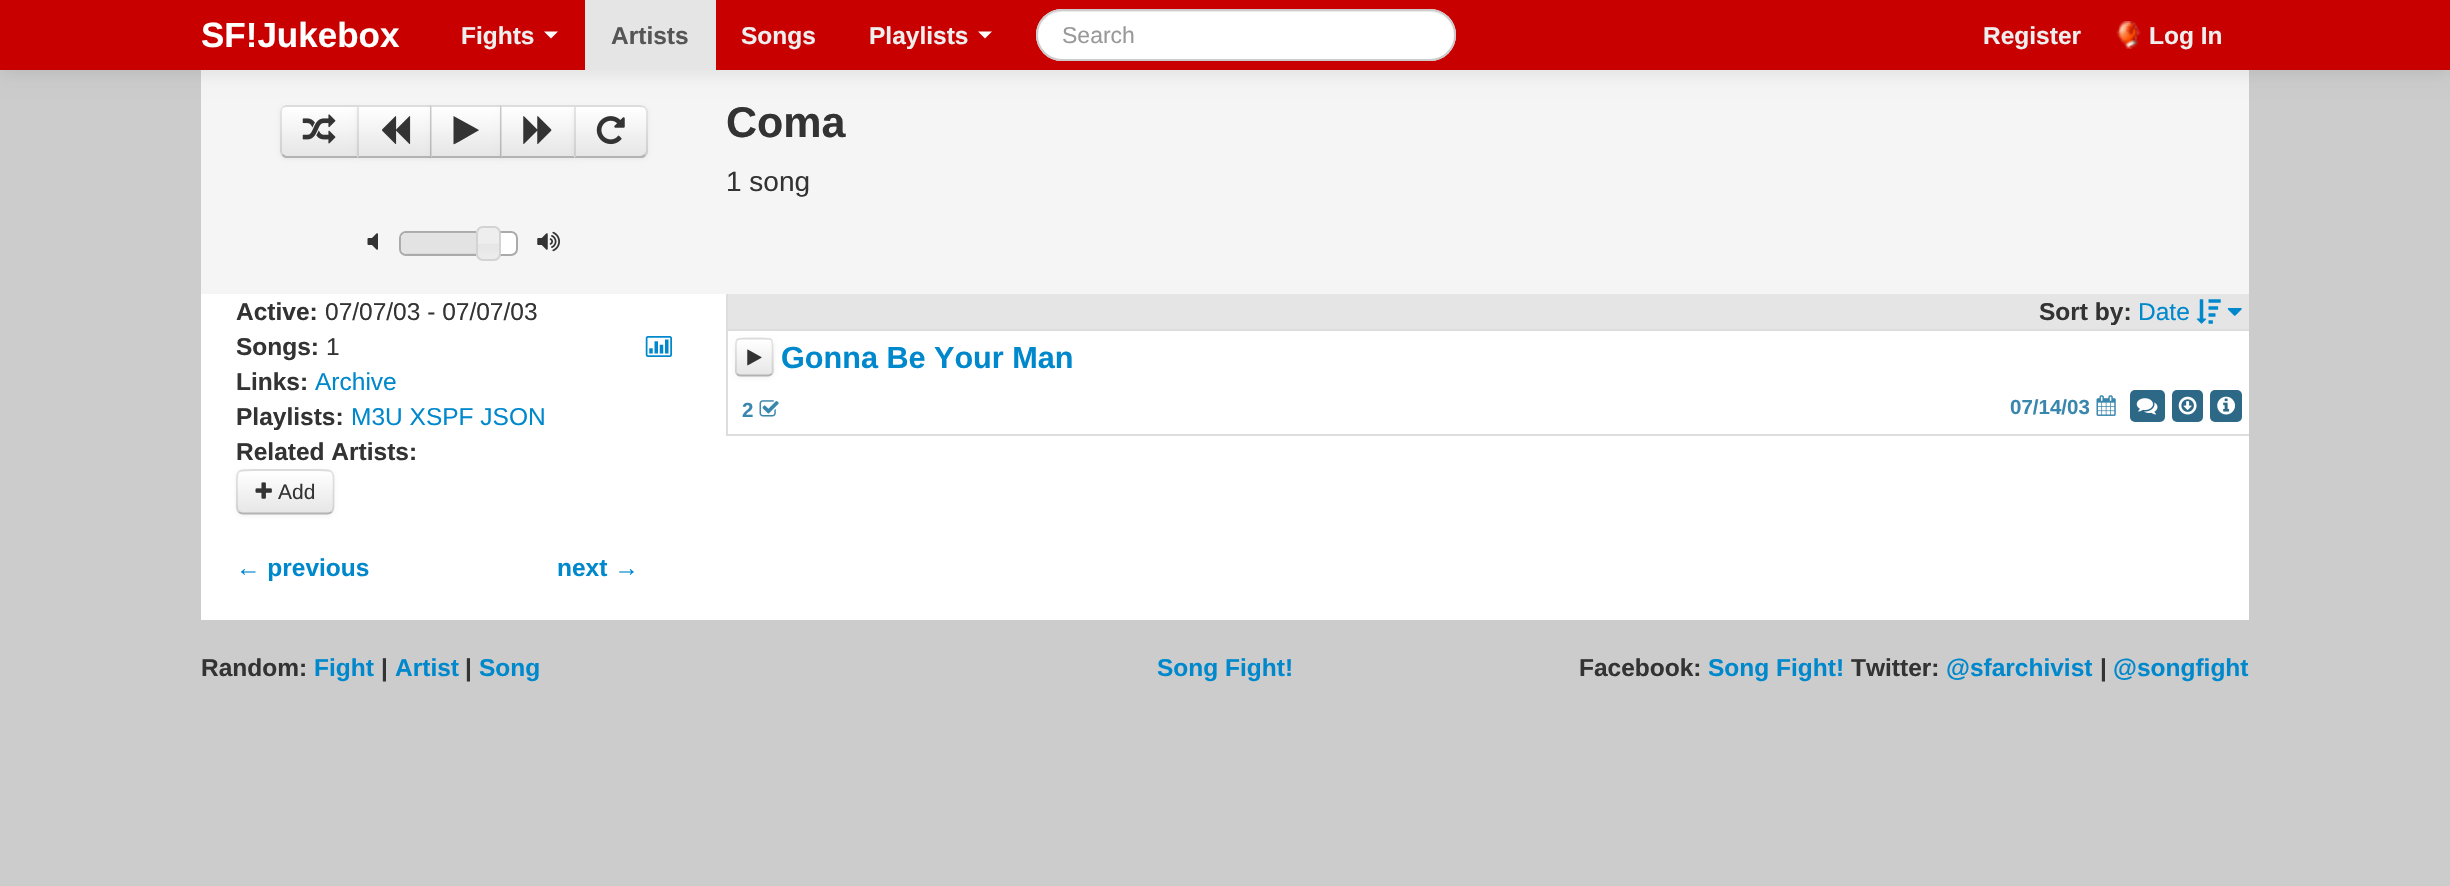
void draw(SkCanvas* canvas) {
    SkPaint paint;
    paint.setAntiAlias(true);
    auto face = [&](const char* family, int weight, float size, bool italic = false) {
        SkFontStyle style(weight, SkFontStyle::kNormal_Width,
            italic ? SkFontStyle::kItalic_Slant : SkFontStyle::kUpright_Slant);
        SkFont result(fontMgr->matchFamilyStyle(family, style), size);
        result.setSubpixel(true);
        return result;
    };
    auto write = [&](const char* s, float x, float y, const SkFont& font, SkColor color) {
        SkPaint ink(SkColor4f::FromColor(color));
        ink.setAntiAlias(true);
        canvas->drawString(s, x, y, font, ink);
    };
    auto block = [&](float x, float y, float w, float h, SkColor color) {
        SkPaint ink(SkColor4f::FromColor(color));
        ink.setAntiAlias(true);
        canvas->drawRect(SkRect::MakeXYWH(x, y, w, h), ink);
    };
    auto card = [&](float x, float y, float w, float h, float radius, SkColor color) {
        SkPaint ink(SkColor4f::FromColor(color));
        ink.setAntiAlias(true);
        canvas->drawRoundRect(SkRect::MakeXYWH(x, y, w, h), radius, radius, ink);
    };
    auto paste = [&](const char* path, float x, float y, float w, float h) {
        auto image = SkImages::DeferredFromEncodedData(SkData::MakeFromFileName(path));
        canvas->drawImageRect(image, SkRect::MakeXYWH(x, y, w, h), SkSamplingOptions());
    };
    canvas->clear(SkColorSetRGB(204, 204, 204));
    block(201, 70, 2048, 224, SkColorSetRGB(245, 245, 245));
    paint.setColor(SkColorSetARGB(26, 0, 0, 0));
    paint.setMaskFilter(SkMaskFilter::MakeBlur(kNormal_SkBlurStyle, 9));
    canvas->drawRect(SkRect::MakeXYWH(0, 2, 2450, 70), paint);
    paint.setMaskFilter(nullptr);
    block(0, 0, 2450, 70, SkColorSetRGB(200, 0, 0));
    auto kFont1 = face("Liberation Sans", 700, 35);
    write("SF!Jukebox", 201, 47, kFont1, SK_ColorWHITE);
    auto kFont2 = face("Liberation Sans", 700, 24.5f);
    write("Fights", 461, 44, kFont2, SkColorSetRGB(238, 238, 238));
    paint.setColor(SK_ColorWHITE);
    canvas->drawPath(SkPathBuilder().moveTo(544, 31.5f).lineTo(558, 31.5f).lineTo(551, 38.5f).close().detach(), paint);
    block(585, 0, 131, 70, SkColorSetRGB(229, 229, 229));
    write("Artists", 611, 44, kFont2, SkColorSetRGB(85, 85, 85));
    write("Songs", 741, 44, kFont2, SkColorSetRGB(238, 238, 238));
    write("Playlists", 869, 44, kFont2, SkColorSetRGB(238, 238, 238));
    canvas->drawPath(SkPathBuilder().moveTo(978, 31.5f).lineTo(992, 31.5f).lineTo(985, 38.5f).close().detach(), paint);
    card(1036, 9, 420, 52, 26, SK_ColorWHITE);
    paint.setColor(SkColorSetRGB(236, 236, 236));
    canvas->drawPath(SkPathBuilder().moveTo(1062, 12).lineTo(1430, 12).cubicTo(1443, 12, 1454, 23, 1454, 36).cubicTo(1454, 23, 1443, 11, 1430, 11).lineTo(1062, 11).cubicTo(1049, 11, 1038, 23, 1038, 36).cubicTo(1038, 23, 1049, 12, 1062, 12).close().detach(), paint);
    paint.setStyle(SkPaint::kStroke_Style);
    paint.setStrokeWidth(2);
    paint.setColor(SkColorSetRGB(204, 204, 204));
    canvas->drawRoundRect(SkRect::MakeXYWH(1037, 10, 418, 50), 25, 25, paint);
    auto kFont3 = face("Liberation Sans", 400, 23);
    write("Search", 1062, 43, kFont3, SkColorSetRGB(153, 153, 153));
    write("Register", 1983, 44, kFont2, SkColorSetRGB(238, 238, 238));
    paste("pic1.png", 2115, 21, 26, 28);
    write("Log In", 2149, 44, kFont2, SkColorSetRGB(238, 238, 238));
    paint.setStyle(SkPaint::kFill_Style);
    paint.setColor(SkColorSetARGB(13, 0, 0, 0));
    paint.setMaskFilter(SkMaskFilter::MakeBlur(kNormal_SkBlurStyle, 2));
    canvas->drawRoundRect(SkRect::MakeXYWH(280, 107, 79, 52), 7, 7, paint);
    paint.setMaskFilter(nullptr);
    paint.setColor(SkColorSetRGB(245, 245, 245));
    canvas->drawPath(SkPathBuilder().moveTo(287, 105).lineTo(359, 105).lineTo(359, 158).lineTo(287, 158).cubicTo(283, 158, 280, 155, 280, 151).lineTo(280, 112).cubicTo(280, 108, 283, 105, 287, 105).close().detach(), paint);
    canvas->save();
    canvas->clipPath(SkPathBuilder().moveTo(287, 105).lineTo(359, 105).lineTo(359, 158).lineTo(287, 158).cubicTo(283, 158, 280, 155, 280, 151).lineTo(280, 112).cubicTo(280, 108, 283, 105, 287, 105).close().detach(), true);
    {
        const SkColor colors[] = {SK_ColorWHITE, SkColorSetRGB(230, 230, 230)};
        const float stops[] = {0, 1};
        const SkPoint ends[] = {{319, 107}, {319, 156}};
        paint.setShader(SkGradientShader::MakeLinear(ends, colors, stops, 2, SkTileMode::kClamp));
        paint.setAlpha(255);
    }
    canvas->drawRect(SkRect::MakeXYWH(280, 107, 77, 49), paint);
    canvas->restore();
    paint.setShader(nullptr);
    paint.setColor(SkColorSetARGB(26, 0, 0, 0));
    canvas->drawPath(SkPathBuilder().moveTo(287, 105).cubicTo(285, 105, 283, 106, 282, 107).lineTo(283, 108).lineTo(286, 107).lineTo(357, 107).lineTo(359, 105).close().detach(), paint);
    paint.setColor(SkColorSetRGB(179, 179, 179));
    canvas->drawPath(SkPathBuilder().moveTo(359, 158).lineTo(285, 158).lineTo(282, 156).lineTo(283, 154).lineTo(286, 156).lineTo(357, 156).close().detach(), paint);
    paint.setColor(SkColorSetARGB(26, 0, 0, 0));
    canvas->drawPath(SkPathBuilder().moveTo(280, 112).lineTo(280, 150).cubicTo(280, 152, 281, 154, 282, 156).lineTo(283, 154).cubicTo(282, 153, 282, 152, 282, 150).lineTo(282, 112).cubicTo(282, 110, 282, 109, 283, 108).lineTo(282, 107).cubicTo(281, 108, 280, 110, 280, 112).close().detach(), paint);
    paste("pic2.png", 302, 114, 34, 30);
    paint.setColor(SkColorSetARGB(13, 0, 0, 0));
    paint.setMaskFilter(SkMaskFilter::MakeBlur(kNormal_SkBlurStyle, 2));
    canvas->drawRect(SkRect::MakeXYWH(357, 107, 75, 52), paint);
    paint.setMaskFilter(nullptr);
    block(357, 105, 74, 53, SkColorSetRGB(245, 245, 245));
    {
        const SkColor colors[] = {SK_ColorWHITE, SkColorSetRGB(230, 230, 230)};
        const float stops[] = {0, 1};
        const SkPoint ends[] = {{395, 107}, {395, 156}};
        paint.setShader(SkGradientShader::MakeLinear(ends, colors, stops, 2, SkTileMode::kClamp));
        paint.setAlpha(255);
    }
    canvas->drawRect(SkRect::MakeXYWH(357, 107, 74, 49), paint);
    paint.setShader(nullptr);
    paint.setColor(SkColorSetRGB(221, 221, 221));
    canvas->drawPath(SkPathBuilder().moveTo(357, 105).lineTo(432, 105).lineTo(430, 107).lineTo(359, 107).close().detach(), paint);
    paint.setColor(SkColorSetARGB(26, 0, 0, 0));
    canvas->drawPath(SkPathBuilder().moveTo(432, 105).lineTo(432, 158).lineTo(430, 156).lineTo(430, 107).close().detach(), paint);
    paint.setColor(SkColorSetRGB(179, 179, 179));
    canvas->drawPath(SkPathBuilder().moveTo(432, 158).lineTo(357, 158).lineTo(359, 156).lineTo(430, 156).close().detach(), paint);
    paint.setColor(SkColorSetARGB(26, 0, 0, 0));
    canvas->drawPath(SkPathBuilder().moveTo(357, 158).lineTo(357, 105).lineTo(359, 107).lineTo(359, 156).close().detach(), paint);
    paste("pic3.png", 382, 116, 29, 29);
    paint.setColor(SkColorSetARGB(13, 0, 0, 0));
    paint.setMaskFilter(SkMaskFilter::MakeBlur(kNormal_SkBlurStyle, 2));
    canvas->drawRect(SkRect::MakeXYWH(431, 107, 71, 52), paint);
    paint.setMaskFilter(nullptr);
    block(431, 106, 70, 51, SkColorSetRGB(245, 245, 245));
    {
        const SkColor colors[] = {SK_ColorWHITE, SkColorSetRGB(230, 230, 230)};
        const float stops[] = {0, 1};
        const SkPoint ends[] = {{466, 107}, {466, 156}};
        paint.setShader(SkGradientShader::MakeLinear(ends, colors, stops, 2, SkTileMode::kClamp));
        paint.setAlpha(255);
    }
    canvas->drawRect(SkRect::MakeXYWH(431, 107, 70, 49), paint);
    paint.setShader(nullptr);
    paint.setColor(SkColorSetRGB(221, 221, 221));
    canvas->drawPath(SkPathBuilder().moveTo(430, 105).lineTo(502, 105).lineTo(500, 107).lineTo(432, 107).close().detach(), paint);
    paint.setColor(SkColorSetARGB(26, 0, 0, 0));
    canvas->drawPath(SkPathBuilder().moveTo(502, 105).lineTo(502, 158).lineTo(500, 156).lineTo(500, 107).close().detach(), paint);
    paint.setColor(SkColorSetRGB(179, 179, 179));
    canvas->drawPath(SkPathBuilder().moveTo(502, 158).lineTo(430, 158).lineTo(432, 156).lineTo(500, 156).close().detach(), paint);
    paint.setColor(SkColorSetARGB(26, 0, 0, 0));
    canvas->drawPath(SkPathBuilder().moveTo(430, 158).lineTo(430, 105).lineTo(432, 107).lineTo(432, 156).close().detach(), paint);
    paint.setColor(SkColorSetRGB(51, 51, 51));
    canvas->drawPath(SkPathBuilder().moveTo(478.5f, 130.5f).lineTo(458.5f, 142).cubicTo(458, 142, 454, 145, 453.5f, 144).lineTo(453.5f, 116.5f).lineTo(453.5f, 116).lineTo(474.5f, 127.5f).lineTo(479, 130).close().detach(), paint);
    paint.setColor(SkColorSetARGB(13, 0, 0, 0));
    paint.setMaskFilter(SkMaskFilter::MakeBlur(kNormal_SkBlurStyle, 2));
    canvas->drawRect(SkRect::MakeXYWH(501, 107, 75, 52), paint);
    paint.setMaskFilter(nullptr);
    block(501, 106, 1, 51, SkColorSetRGB(245, 245, 245));
    {
        const SkColor colors[] = {SK_ColorWHITE, SkColorSetRGB(230, 230, 230)};
        const float stops[] = {0, 1};
        const SkPoint ends[] = {{538, 107}, {538, 156}};
        paint.setShader(SkGradientShader::MakeLinear(ends, colors, stops, 2, SkTileMode::kClamp));
        paint.setAlpha(255);
    }
    canvas->drawRect(SkRect::MakeXYWH(501, 107, 73, 49), paint);
    paint.setShader(nullptr);
    paint.setColor(SkColorSetRGB(221, 221, 221));
    canvas->drawPath(SkPathBuilder().moveTo(500, 105).lineTo(576, 105).lineTo(574, 107).lineTo(502, 107).close().detach(), paint);
    paint.setColor(SkColorSetRGB(179, 179, 179));
    canvas->drawPath(SkPathBuilder().moveTo(576, 158).lineTo(500, 158).lineTo(502, 156).lineTo(574, 156).close().detach(), paint);
    paint.setColor(SkColorSetARGB(26, 0, 0, 0));
    canvas->drawPath(SkPathBuilder().moveTo(500, 158).lineTo(500, 105).lineTo(502, 107).lineTo(502, 156).close().detach(), paint);
    paste("pic4.png", 523, 116, 29, 29);
    paint.setColor(SkColorSetARGB(13, 0, 0, 0));
    paint.setMaskFilter(SkMaskFilter::MakeBlur(kNormal_SkBlurStyle, 2));
    canvas->drawRoundRect(SkRect::MakeXYWH(574, 107, 74, 52), 7, 7, paint);
    paint.setMaskFilter(nullptr);
    paint.setColor(SkColorSetRGB(245, 245, 245));
    canvas->drawPath(SkPathBuilder().moveTo(574, 105).lineTo(641, 105).cubicTo(645, 105, 648, 108, 648, 112).lineTo(648, 151).cubicTo(648, 155, 645, 158, 641, 158).lineTo(574, 158).close().detach(), paint);
    canvas->save();
    canvas->clipPath(SkPathBuilder().moveTo(574, 105).lineTo(641, 105).cubicTo(645, 105, 648, 108, 648, 112).lineTo(648, 151).cubicTo(648, 155, 645, 158, 641, 158).lineTo(574, 158).close().detach(), true);
    {
        const SkColor colors[] = {SK_ColorWHITE, SkColorSetRGB(230, 230, 230)};
        const float stops[] = {0, 1};
        const SkPoint ends[] = {{611, 107}, {611, 156}};
        paint.setShader(SkGradientShader::MakeLinear(ends, colors, stops, 2, SkTileMode::kClamp));
        paint.setAlpha(255);
    }
    canvas->drawRect(SkRect::MakeXYWH(574, 107, 74, 49), paint);
    canvas->restore();
    paint.setShader(nullptr);
    paint.setColor(SkColorSetARGB(26, 0, 0, 0));
    canvas->drawPath(SkPathBuilder().moveTo(574, 105).lineTo(576, 107).lineTo(640, 107).cubicTo(642, 107, 643, 108, 644, 108).lineTo(646, 107).cubicTo(644, 106, 642, 105, 640, 105).close().detach(), paint);
    canvas->drawPath(SkPathBuilder().moveTo(648, 153).lineTo(646, 156).lineTo(644, 154).cubicTo(645, 153, 646, 152, 646, 150).lineTo(646, 112).cubicTo(646, 110, 645, 109, 644, 108).lineTo(646, 107).lineTo(648, 110).close().detach(), paint);
    paint.setColor(SkColorSetRGB(179, 179, 179));
    canvas->drawPath(SkPathBuilder().moveTo(643, 158).lineTo(574, 158).lineTo(576, 156).lineTo(640, 156).cubicTo(642, 156, 643, 155, 644, 154).lineTo(646, 156).close().detach(), paint);
    paint.setColor(SkColorSetARGB(26, 0, 0, 0));
    canvas->drawPath(SkPathBuilder().moveTo(574, 105).lineTo(574, 158).lineTo(576, 156).lineTo(576, 107).close().detach(), paint);
    paste("pic5.png", 596, 116, 29, 29);
    auto kFont4 = face("Liberation Sans", 700, 43);
    write("Coma", 726, 137, kFont4, SkColorSetRGB(51, 51, 51));
    auto kFont5 = face("Liberation Sans", 400, 28);
    write("1 song", 726, 191, kFont5, SkColorSetRGB(51, 51, 51));
    paste("pic6.png", 367, 233, 11, 17);
    paint.setColor(SK_ColorWHITE);
    canvas->drawRoundRect(SkRect::MakeXYWH(400, 232, 117, 23), 6, 6, paint);
    paint.setStyle(SkPaint::kStroke_Style);
    paint.setColor(SkColorSetRGB(170, 170, 170));
    canvas->drawRoundRect(SkRect::MakeXYWH(400, 232, 117, 23), 6, 6, paint);
    card(401, 233, 91, 21, 7, SkColorSetRGB(204, 204, 204));
    paste("pic8.png", 400, 232, 77, 22);
    paste("pic7.png", 476, 226, 24, 35);
    paint.setColor(SkColorSetRGB(211, 211, 211));
    canvas->drawRoundRect(SkRect::MakeXYWH(477, 227, 23, 33), 6, 6, paint);
    paste("pic9.png", 537, 231, 23, 21);
    block(201, 294, 2048, 326, SK_ColorWHITE);
    write("Active:", 236, 320, kFont2, SkColorSetRGB(51, 51, 51));
    auto kFont6 = face("Liberation Sans", 400, 24.5f);
    write("07/07/03 - 07/07/03", 325, 320, kFont6, SkColorSetRGB(51, 51, 51));
    write("Songs:", 236, 355, kFont2, SkColorSetRGB(51, 51, 51));
    write("1", 326, 355, kFont6, SkColorSetRGB(51, 51, 51));
    paste("pic10.png", 645, 336, 27, 21);
    write("Links:", 236, 390, kFont2, SkColorSetRGB(51, 51, 51));
    write("Archive", 315, 390, kFont6, SkColorSetRGB(0, 136, 204));
    write("Playlists:", 236, 425, kFont2, SkColorSetRGB(51, 51, 51));
    write("M3U XSPF JSON", 351, 425, kFont6, SkColorSetRGB(0, 136, 204));
    write("Related Artists:", 236, 460, kFont2, SkColorSetRGB(51, 51, 51));
    paint.setStyle(SkPaint::kFill_Style);
    paint.setColor(SkColorSetARGB(13, 0, 0, 0));
    paint.setMaskFilter(SkMaskFilter::MakeBlur(kNormal_SkBlurStyle, 2));
    canvas->drawRoundRect(SkRect::MakeXYWH(236, 471, 98, 45), 7, 7, paint);
    paint.setMaskFilter(nullptr);
    card(236, 469, 98, 46, 7, SkColorSetRGB(245, 245, 245));
    canvas->save();
    canvas->clipPath(SkPathBuilder().moveTo(243, 469).lineTo(327, 469).cubicTo(331, 469, 334, 472, 334, 476).lineTo(334, 508).cubicTo(334, 512, 331, 515, 327, 515).lineTo(243, 515).cubicTo(239, 515, 236, 512, 236, 508).lineTo(236, 476).cubicTo(236, 472, 239, 469, 243, 469).close().detach(), true);
    {
        const SkColor colors[] = {SK_ColorWHITE, SkColorSetRGB(230, 230, 230)};
        const float stops[] = {0, 1};
        const SkPoint ends[] = {{285, 471}, {285, 513}};
        paint.setShader(SkGradientShader::MakeLinear(ends, colors, stops, 2, SkTileMode::kClamp));
        paint.setAlpha(255);
    }
    canvas->drawRect(SkRect::MakeXYWH(236, 471, 98, 42), paint);
    canvas->restore();
    paint.setShader(nullptr);
    paint.setColor(SkColorSetARGB(51, 255, 255, 255));
    canvas->drawPath(SkPathBuilder().moveTo(243, 472).lineTo(327, 472).cubicTo(330, 472, 332, 475, 332, 478).lineTo(332, 509).lineTo(331, 512).cubicTo(332, 511, 333, 509, 333, 508).lineTo(333, 476).cubicTo(333, 473, 331, 471, 328, 471).lineTo(243, 471).cubicTo(240, 471, 238, 473, 238, 476).lineTo(238, 478).cubicTo(238, 475, 240, 472, 243, 472).close().detach(), paint);
    paint.setStyle(SkPaint::kStroke_Style);
    paint.setStrokeWidth(1.8f);
    paint.setColor(SkColorSetRGB(179, 179, 179));
    canvas->drawPath(SkPathBuilder().moveTo(331.5f, 512).cubicTo(330.5f, 513, 329, 513.5f, 327, 513.5f).lineTo(243, 513.5f).cubicTo(241.5f, 513.5f, 240, 513, 239, 512).detach(), paint);
    paint.setColor(SkColorSetARGB(26, 0, 0, 0));
    canvas->drawPath(SkPathBuilder().moveTo(239, 512).cubicTo(236.5f, 509.5f, 237, 505.5f, 237, 502).lineTo(237, 492).cubicTo(237, 468.5f, 234, 470, 257, 470).lineTo(313, 470).cubicTo(336.5f, 470, 333.5f, 468.5f, 333.5f, 492).lineTo(333.5f, 502).cubicTo(333.5f, 505.5f, 334, 509.5f, 331.5f, 512).detach(), paint);
    paste("pic11.png", 255, 482, 17, 17);
    auto kFont7 = face("Liberation Sans", 400, 21);
    write("Add", 278, 499, kFont7, SkColorSetRGB(51, 51, 51));
    write("← previous", 236, 576, kFont2, SkColorSetRGB(0, 136, 204));
    write("next →", 557, 576, kFont2, SkColorSetRGB(0, 136, 204));
    block(726, 294, 2, 142, SkColorSetRGB(221, 221, 221));
    block(728, 294, 1521, 35, SkColorSetRGB(229, 229, 229));
    block(728, 329, 1521, 2, SkColorSetRGB(221, 221, 221));
    write("Sort by:", 2039, 320, kFont2, SkColorSetRGB(51, 51, 51));
    write("Date", 2138, 320, kFont6, SkColorSetRGB(0, 136, 204));
    paste("pic12.png", 2196, 299, 25, 25);
    paste("pic13.png", 2227, 308, 15, 8);
    block(728, 434, 1521, 2, SkColorSetRGB(221, 221, 221));
    paint.setStyle(SkPaint::kFill_Style);
    paint.setColor(SkColorSetARGB(13, 0, 0, 0));
    paint.setMaskFilter(SkMaskFilter::MakeBlur(kNormal_SkBlurStyle, 2));
    canvas->drawRoundRect(SkRect::MakeXYWH(735, 340, 39, 38), 5, 5, paint);
    paint.setMaskFilter(nullptr);
    card(735, 338, 39, 38, 5, SkColorSetRGB(245, 245, 245));
    canvas->save();
    canvas->clipPath(SkPathBuilder().moveTo(740, 338).lineTo(769, 338).cubicTo(772, 338, 774, 340, 774, 343).lineTo(774, 371).cubicTo(774, 374, 772, 376, 769, 376).lineTo(740, 376).cubicTo(737, 376, 735, 374, 735, 371).lineTo(735, 343).cubicTo(735, 340, 737, 338, 740, 338).close().detach(), true);
    {
        const SkColor colors[] = {SK_ColorWHITE, SkColorSetRGB(230, 230, 230)};
        const float stops[] = {0, 1};
        const SkPoint ends[] = {{754, 340}, {754, 375}};
        paint.setShader(SkGradientShader::MakeLinear(ends, colors, stops, 2, SkTileMode::kClamp));
        paint.setAlpha(255);
    }
    canvas->drawRect(SkRect::MakeXYWH(735, 340, 39, 35), paint);
    canvas->restore();
    paint.setStyle(SkPaint::kStroke_Style);
    paint.setShader(nullptr);
    paint.setColor(SkColorSetRGB(179, 179, 179));
    canvas->drawPath(SkPathBuilder().moveTo(771.5f, 374).cubicTo(770.5f, 375, 769.5f, 375.5f, 768, 375.5f).lineTo(740, 375.5f).cubicTo(739, 375.5f, 738, 375, 737, 374).detach(), paint);
    paint.setColor(SkColorSetARGB(26, 0, 0, 0));
    canvas->drawPath(SkPathBuilder().moveTo(737, 374).cubicTo(735, 372, 736, 368.5f, 736, 366.5f).lineTo(736, 357).cubicTo(736, 336, 733, 338.5f, 754, 338.5f).cubicTo(775.5f, 338.5f, 772.5f, 336, 772.5f, 357).lineTo(772.5f, 366.5f).cubicTo(772.5f, 368.5f, 773.5f, 372, 771.5f, 374).detach(), paint);
    paste("pic14.png", 747, 349, 15, 17);
    auto kFont8 = face("Liberation Sans", 700, 30.6f);
    write("Gonna Be Your Man", 781, 368, kFont8, SkColorSetRGB(0, 136, 204));
    auto kFont9 = face("Liberation Sans", 700, 20.5f);
    write("2", 742, 417, kFont9, SkColorSetRGB(58, 135, 173));
    paste("pic15.png", 759, 400, 20, 17);
    write("07/14/03", 2010, 414, kFont9, SkColorSetRGB(58, 135, 173));
    paste("pic16.png", 2096, 395, 20, 21);
    card(2130, 390, 35, 32, 5, SkColorSetRGB(45, 105, 135));
    paste("pic17.png", 2136, 398, 22, 17);
    card(2172, 390, 31, 32, 5, SkColorSetRGB(45, 105, 135));
    paste("pic18.png", 2178, 396, 19, 19);
    card(2210, 390, 32, 32, 5, SkColorSetRGB(45, 105, 135));
    paste("pic19.png", 2217, 396, 18, 19);
    write("Random:", 201, 676, kFont2, SkColorSetRGB(51, 51, 51));
    write("Fight", 314, 676, kFont2, SkColorSetRGB(0, 136, 204));
    write("|", 381, 676, kFont2, SkColorSetRGB(51, 51, 51));
    write("Artist", 395, 676, kFont2, SkColorSetRGB(0, 136, 204));
    write("|", 465, 676, kFont2, SkColorSetRGB(51, 51, 51));
    write("Song", 479, 676, kFont2, SkColorSetRGB(0, 136, 204));
    write("Song Fight!", 1157, 676, kFont2, SkColorSetRGB(0, 136, 204));
    write("Facebook:", 1579, 676, kFont2, SkColorSetRGB(51, 51, 51));
    write("Song Fight!", 1708, 676, kFont2, SkColorSetRGB(0, 136, 204));
    write("Twitter:", 1851, 676, kFont2, SkColorSetRGB(51, 51, 51));
    write("@sfarchivist", 1946, 676, kFont2, SkColorSetRGB(0, 136, 204));
    write("|", 2100, 676, kFont2, SkColorSetRGB(51, 51, 51));
    write("@songfight", 2113, 676, kFont2, SkColorSetRGB(0, 136, 204));
}
